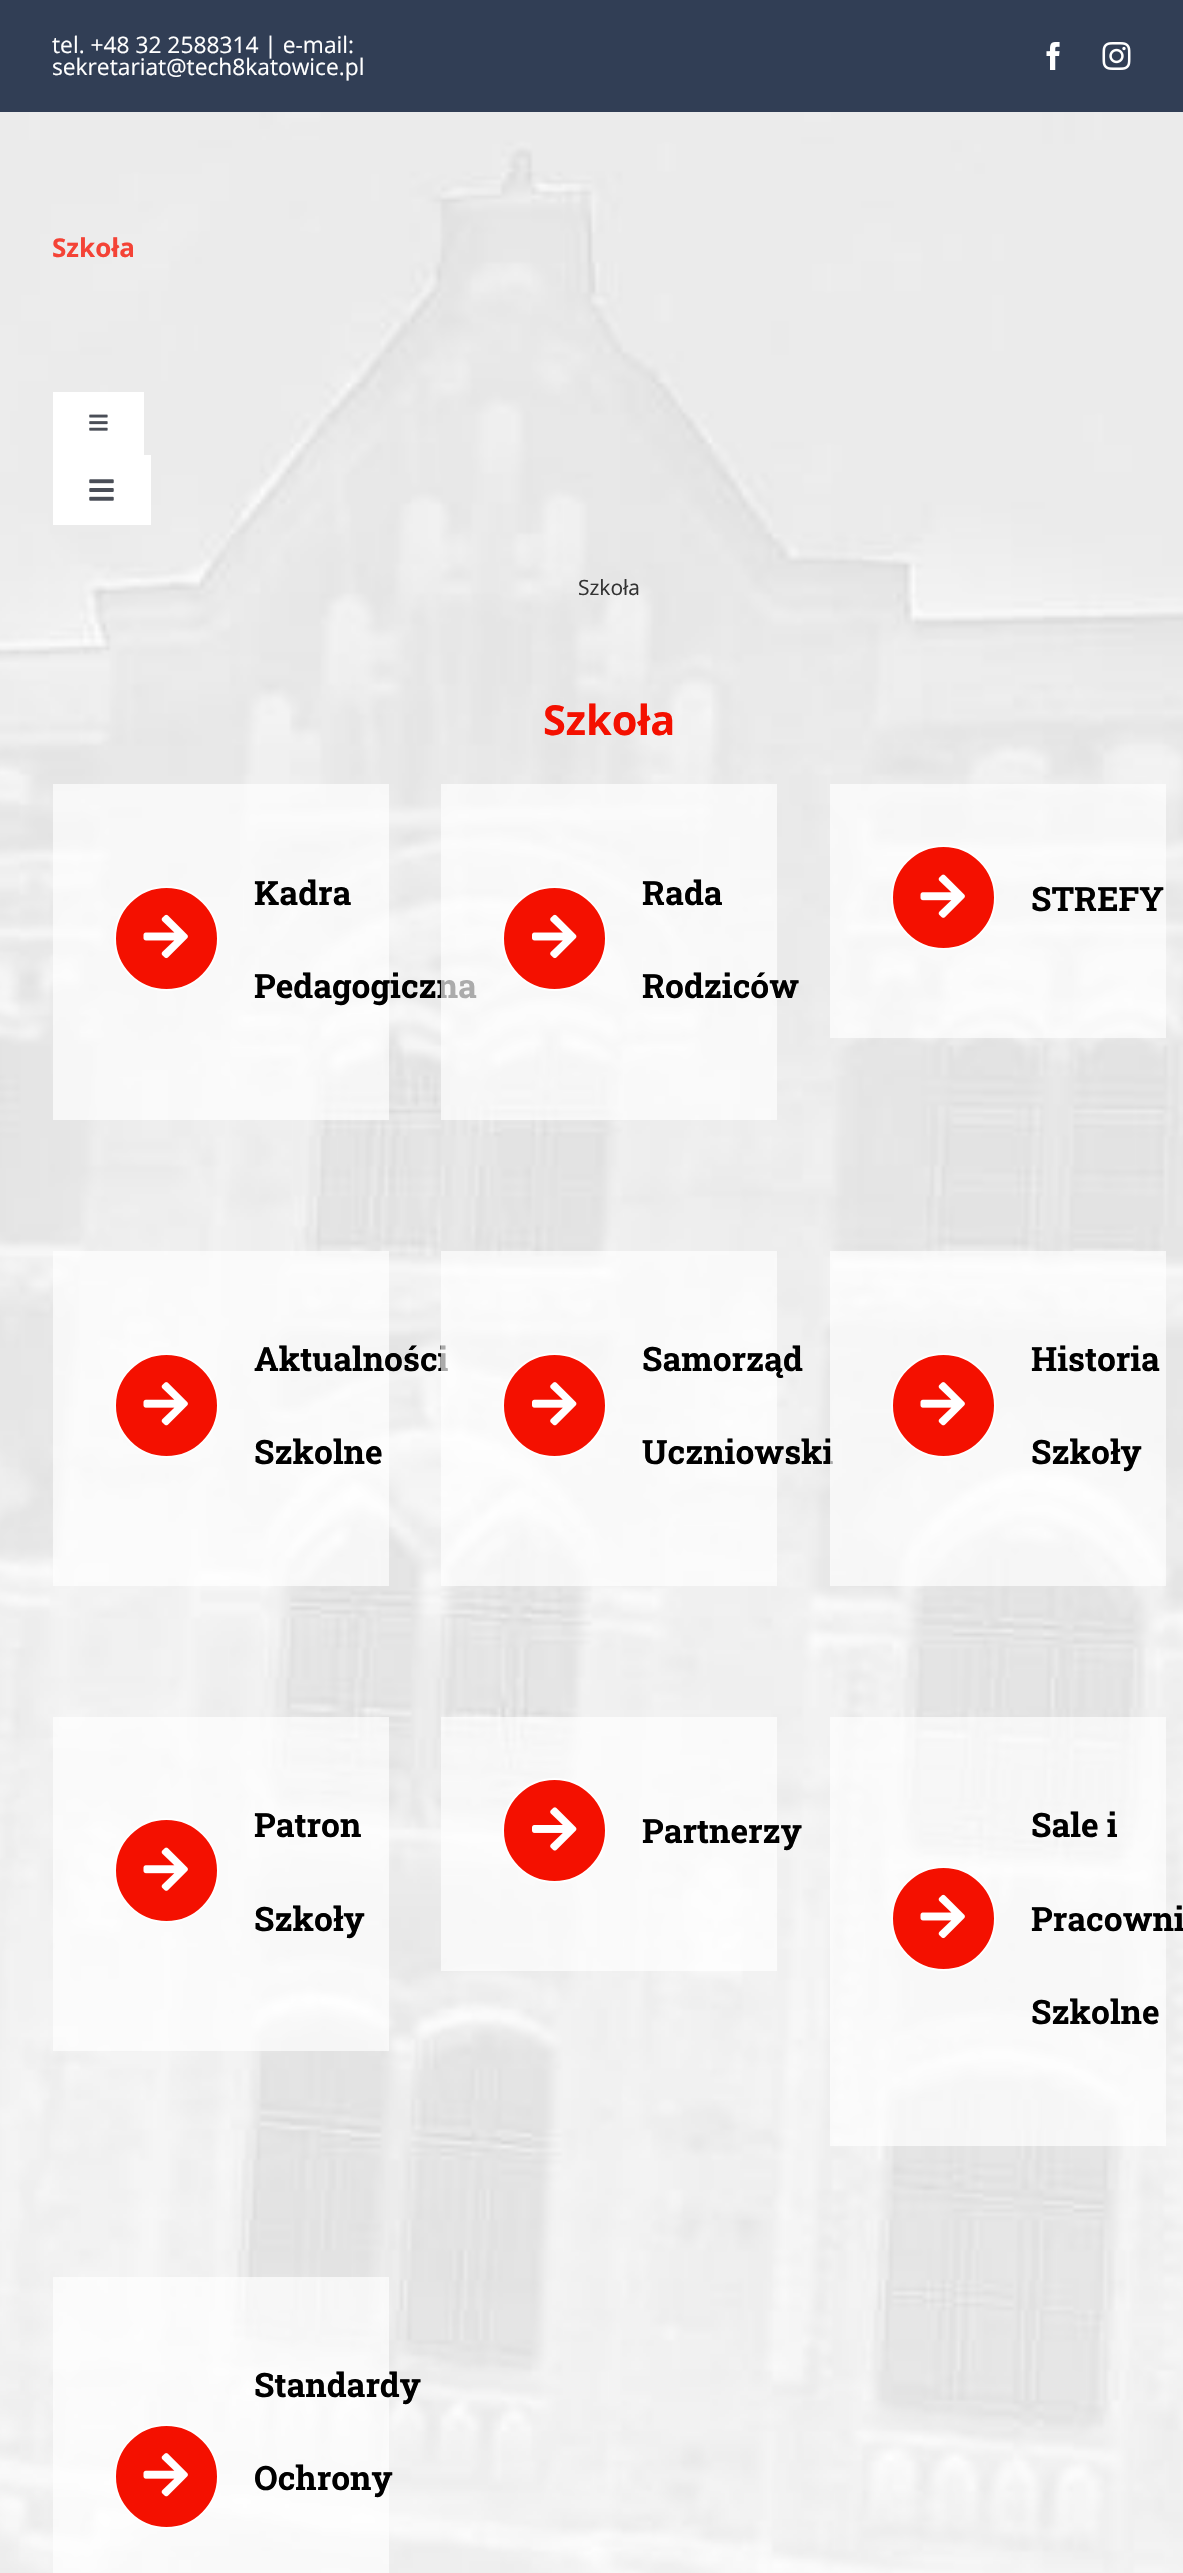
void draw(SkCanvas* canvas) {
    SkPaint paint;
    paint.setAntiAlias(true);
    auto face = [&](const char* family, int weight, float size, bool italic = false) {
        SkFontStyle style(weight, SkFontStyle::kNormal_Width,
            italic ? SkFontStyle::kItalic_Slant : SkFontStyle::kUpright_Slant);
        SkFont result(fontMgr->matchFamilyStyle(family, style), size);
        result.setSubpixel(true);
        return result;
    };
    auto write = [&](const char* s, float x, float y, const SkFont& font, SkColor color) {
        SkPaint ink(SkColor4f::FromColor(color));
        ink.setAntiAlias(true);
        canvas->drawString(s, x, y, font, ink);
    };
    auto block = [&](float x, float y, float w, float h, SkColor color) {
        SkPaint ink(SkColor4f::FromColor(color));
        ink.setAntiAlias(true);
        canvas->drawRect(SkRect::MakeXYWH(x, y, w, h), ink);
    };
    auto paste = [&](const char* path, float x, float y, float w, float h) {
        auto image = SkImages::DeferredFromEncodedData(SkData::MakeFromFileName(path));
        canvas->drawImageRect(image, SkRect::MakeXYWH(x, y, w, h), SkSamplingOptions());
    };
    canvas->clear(SkColorSetRGB(49, 62, 85));
    auto kFont1 = face("Open Sans", 400, 22.75f);
    write("tel. +48 32 2588314 | e-mail:", 52, 53, kFont1, SK_ColorWHITE);
    write("sekretariat@tech8katowice.pl", 52, 75, kFont1, SK_ColorWHITE);
    paste("pic1.png", 1046, 42, 14, 28);
    paste("pic2.png", 1102, 42, 29, 28);
    paste("pic3.png", 0, 112, 1183, 2461);
    auto kFont2 = face("Open Sans", 700, 26);
    write("Szkoła", 52, 257, kFont2, SkColorSetRGB(244, 67, 54));
    block(53, 392, 91, 63, SK_ColorWHITE);
    paste("pic4.png", 89, 414, 19, 17);
    block(53, 455, 98, 70, SK_ColorWHITE);
    paste("pic5.png", 89, 479, 25, 22);
    auto kFont3 = face("Open Sans", 400, 21);
    write("Szkoła", 578, 595, kFont3, SkColorSetRGB(51, 51, 51));
    auto kFont4 = face("Open Sans", 700, 41.5f);
    write("Szkoła", 543, 735, kFont4, SkColorSetRGB(244, 16, 0));
    block(53, 784, 336, 336, SkColorSetARGB(171, 255, 255, 255));
    paint.setColor(SkColorSetRGB(244, 16, 0));
    canvas->drawCircle(166.5f, 938.5f, 51.5f, paint);
    paint.setStyle(SkPaint::kStroke_Style);
    paint.setStrokeWidth(2);
    paint.setColor(SK_ColorWHITE);
    canvas->drawCircle(166.5f, 938.5f, 51.5f, paint);
    paste("pic6.png", 143, 914, 45, 45);
    auto kFont5 = face("Roboto Slab", 700, 33.5f);
    write("Kadra", 254, 905, kFont5, SK_ColorBLACK);
    write("Pedagogiczna", 254, 998, kFont5, SK_ColorBLACK);
    block(441, 784, 336, 336, SkColorSetARGB(171, 255, 255, 255));
    paint.setStyle(SkPaint::kFill_Style);
    paint.setColor(SkColorSetRGB(244, 16, 0));
    canvas->drawCircle(554.5f, 938.5f, 51.5f, paint);
    paint.setStyle(SkPaint::kStroke_Style);
    paint.setColor(SK_ColorWHITE);
    canvas->drawCircle(554.5f, 938.5f, 51.5f, paint);
    paste("pic7.png", 532, 914, 45, 45);
    write("Rada", 642, 905, kFont5, SK_ColorBLACK);
    write("Rodziców", 642, 998, kFont5, SK_ColorBLACK);
    block(830, 784, 336, 254, SkColorSetARGB(171, 255, 255, 255));
    paint.setStyle(SkPaint::kFill_Style);
    paint.setColor(SkColorSetRGB(244, 16, 0));
    canvas->drawCircle(943.5f, 897.5f, 51.5f, paint);
    paint.setStyle(SkPaint::kStroke_Style);
    paint.setColor(SK_ColorWHITE);
    canvas->drawCircle(943.5f, 897.5f, 51.5f, paint);
    paste("pic8.png", 920, 874, 45, 44);
    write("STREFY", 1031, 911, kFont5, SK_ColorBLACK);
    block(53, 1251, 336, 335, SkColorSetARGB(171, 255, 255, 255));
    paint.setStyle(SkPaint::kFill_Style);
    paint.setColor(SkColorSetRGB(244, 16, 0));
    canvas->drawCircle(166.5f, 1405.5f, 51.5f, paint);
    paint.setStyle(SkPaint::kStroke_Style);
    paint.setColor(SK_ColorWHITE);
    canvas->drawCircle(166.5f, 1405.5f, 51.5f, paint);
    paste("pic9.png", 143, 1382, 45, 44);
    write("Aktualności", 254, 1371, kFont5, SK_ColorBLACK);
    write("Szkolne", 254, 1464, kFont5, SK_ColorBLACK);
    block(441, 1251, 336, 335, SkColorSetARGB(171, 255, 255, 255));
    paint.setStyle(SkPaint::kFill_Style);
    paint.setColor(SkColorSetRGB(244, 16, 0));
    canvas->drawCircle(554.5f, 1405.5f, 51.5f, paint);
    paint.setStyle(SkPaint::kStroke_Style);
    paint.setColor(SK_ColorWHITE);
    canvas->drawCircle(554.5f, 1405.5f, 51.5f, paint);
    paste("pic10.png", 532, 1382, 45, 44);
    write("Samorząd", 642, 1371, kFont5, SK_ColorBLACK);
    write("Uczniowski", 642, 1464, kFont5, SK_ColorBLACK);
    block(830, 1251, 336, 335, SkColorSetARGB(171, 255, 255, 255));
    paint.setStyle(SkPaint::kFill_Style);
    paint.setColor(SkColorSetRGB(244, 16, 0));
    canvas->drawCircle(943.5f, 1405.5f, 51.5f, paint);
    paint.setStyle(SkPaint::kStroke_Style);
    paint.setColor(SK_ColorWHITE);
    canvas->drawCircle(943.5f, 1405.5f, 51.5f, paint);
    paste("pic9.png", 920, 1382, 45, 44);
    write("Historia", 1031, 1371, kFont5, SK_ColorBLACK);
    write("Szkoły", 1031, 1464, kFont5, SK_ColorBLACK);
    block(53, 1717, 336, 334, SkColorSetARGB(171, 255, 255, 255));
    paint.setStyle(SkPaint::kFill_Style);
    paint.setColor(SkColorSetRGB(244, 16, 0));
    canvas->drawCircle(166.5f, 1870.5f, 51.5f, paint);
    paint.setStyle(SkPaint::kStroke_Style);
    paint.setColor(SK_ColorWHITE);
    canvas->drawCircle(166.5f, 1870.5f, 51.5f, paint);
    paste("pic8.png", 143, 1847, 45, 44);
    write("Patron", 254, 1837, kFont5, SK_ColorBLACK);
    write("Szkoły", 254, 1931, kFont5, SK_ColorBLACK);
    block(441, 1717, 336, 254, SkColorSetARGB(171, 255, 255, 255));
    paint.setStyle(SkPaint::kFill_Style);
    paint.setColor(SkColorSetRGB(244, 16, 0));
    canvas->drawCircle(554.5f, 1830.5f, 51.5f, paint);
    paint.setStyle(SkPaint::kStroke_Style);
    paint.setColor(SK_ColorWHITE);
    canvas->drawCircle(554.5f, 1830.5f, 51.5f, paint);
    paste("pic11.png", 532, 1807, 45, 44);
    write("Partnerzy", 642, 1843, kFont5, SK_ColorBLACK);
    block(830, 1717, 336, 429, SkColorSetARGB(171, 255, 255, 255));
    paint.setStyle(SkPaint::kFill_Style);
    paint.setColor(SkColorSetRGB(244, 16, 0));
    canvas->drawCircle(943.5f, 1918.5f, 51.5f, paint);
    paint.setStyle(SkPaint::kStroke_Style);
    paint.setColor(SK_ColorWHITE);
    canvas->drawCircle(943.5f, 1918.5f, 51.5f, paint);
    paste("pic6.png", 920, 1894, 45, 45);
    write("Sale i", 1031, 1837, kFont5, SK_ColorBLACK);
    write("Pracowni", 1031, 1931, kFont5, SK_ColorBLACK);
    write("Szkolne", 1031, 2024, kFont5, SK_ColorBLACK);
    block(53, 2277, 336, 296, SkColorSetARGB(171, 255, 255, 255));
    paint.setStyle(SkPaint::kFill_Style);
    paint.setColor(SkColorSetRGB(244, 16, 0));
    canvas->drawCircle(166.5f, 2476.5f, 51.5f, paint);
    paint.setStyle(SkPaint::kStroke_Style);
    paint.setColor(SK_ColorWHITE);
    canvas->drawCircle(166.5f, 2476.5f, 51.5f, paint);
    paste("pic9.png", 143, 2453, 45, 44);
    write("Standardy", 254, 2397, kFont5, SK_ColorBLACK);
    write("Ochrony", 254, 2490, kFont5, SK_ColorBLACK);
}
